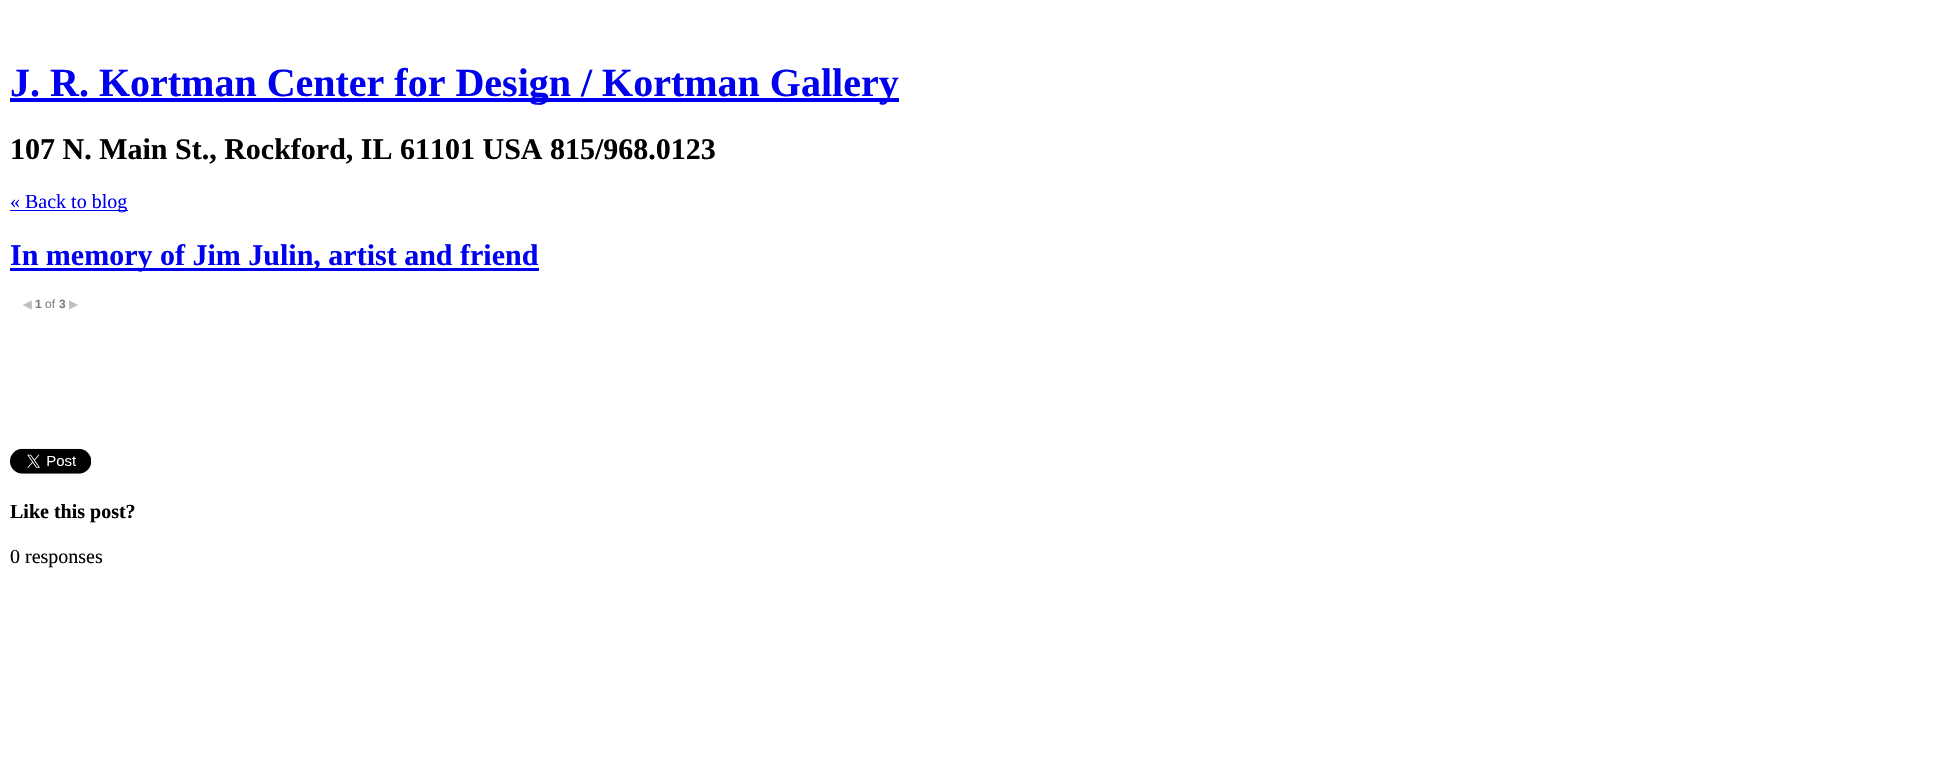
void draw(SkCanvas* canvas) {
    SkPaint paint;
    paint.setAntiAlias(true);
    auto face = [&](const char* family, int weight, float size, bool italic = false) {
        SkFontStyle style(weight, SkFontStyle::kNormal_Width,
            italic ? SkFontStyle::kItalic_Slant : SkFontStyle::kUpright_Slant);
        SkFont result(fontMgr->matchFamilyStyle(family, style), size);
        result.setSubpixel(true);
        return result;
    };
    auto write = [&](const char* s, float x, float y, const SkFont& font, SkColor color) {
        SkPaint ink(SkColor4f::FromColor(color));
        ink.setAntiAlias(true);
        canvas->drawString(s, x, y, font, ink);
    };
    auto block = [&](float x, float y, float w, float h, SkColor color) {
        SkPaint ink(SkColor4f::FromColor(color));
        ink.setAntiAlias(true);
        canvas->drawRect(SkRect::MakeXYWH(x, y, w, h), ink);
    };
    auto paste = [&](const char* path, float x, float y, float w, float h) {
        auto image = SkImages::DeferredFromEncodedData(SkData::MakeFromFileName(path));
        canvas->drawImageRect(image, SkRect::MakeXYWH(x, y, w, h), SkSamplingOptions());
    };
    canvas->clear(SK_ColorWHITE);
    block(10, 98, 889, 4, SkColorSetRGB(0, 0, 238));
    auto kFont1 = face("Liberation Serif", 700, 40);
    write("J. R. Kortman Center for Design / Kortman Gallery", 10, 96, kFont1, SkColorSetRGB(0, 0, 238));
    auto kFont2 = face("Liberation Serif", 700, 30);
    write("107 N. Main St., Rockford, IL 61101 USA 815/968.0123", 10, 159, kFont2, SK_ColorBLACK);
    block(10, 210, 118, 1, SkColorSetRGB(0, 0, 238));
    auto kFont3 = face("Liberation Serif", 400, 20);
    write("« Back to blog", 10, 208, kFont3, SkColorSetRGB(0, 0, 238));
    block(10, 268, 529, 3, SkColorSetRGB(0, 0, 238));
    write("In memory of Jim Julin, artist and friend", 10, 265, kFont2, SkColorSetRGB(0, 0, 238));
    auto kFont4 = face("DejaVu Sans", 700, 11);
    write("◀", 23, 308, kFont4, SkColorSetRGB(191, 191, 191));
    auto kFont5 = face("Liberation Sans", 700, 12);
    write("1", 35, 308, kFont5, SkColorSetRGB(128, 128, 128));
    auto kFont6 = face("Liberation Sans", 400, 12);
    write("of", 45, 308, kFont6, SkColorSetRGB(128, 128, 128));
    write("3", 59, 308, kFont5, SkColorSetRGB(128, 128, 128));
    write("▶", 69, 308, kFont4, SkColorSetRGB(191, 191, 191));
    paste("pic1.png", 10, 448, 82, 26);
    auto kFont7 = face("Liberation Serif", 700, 20);
    write("Like this post?", 10, 518, kFont7, SK_ColorBLACK);
    write("0 responses", 10, 563, kFont3, SK_ColorBLACK);
}
